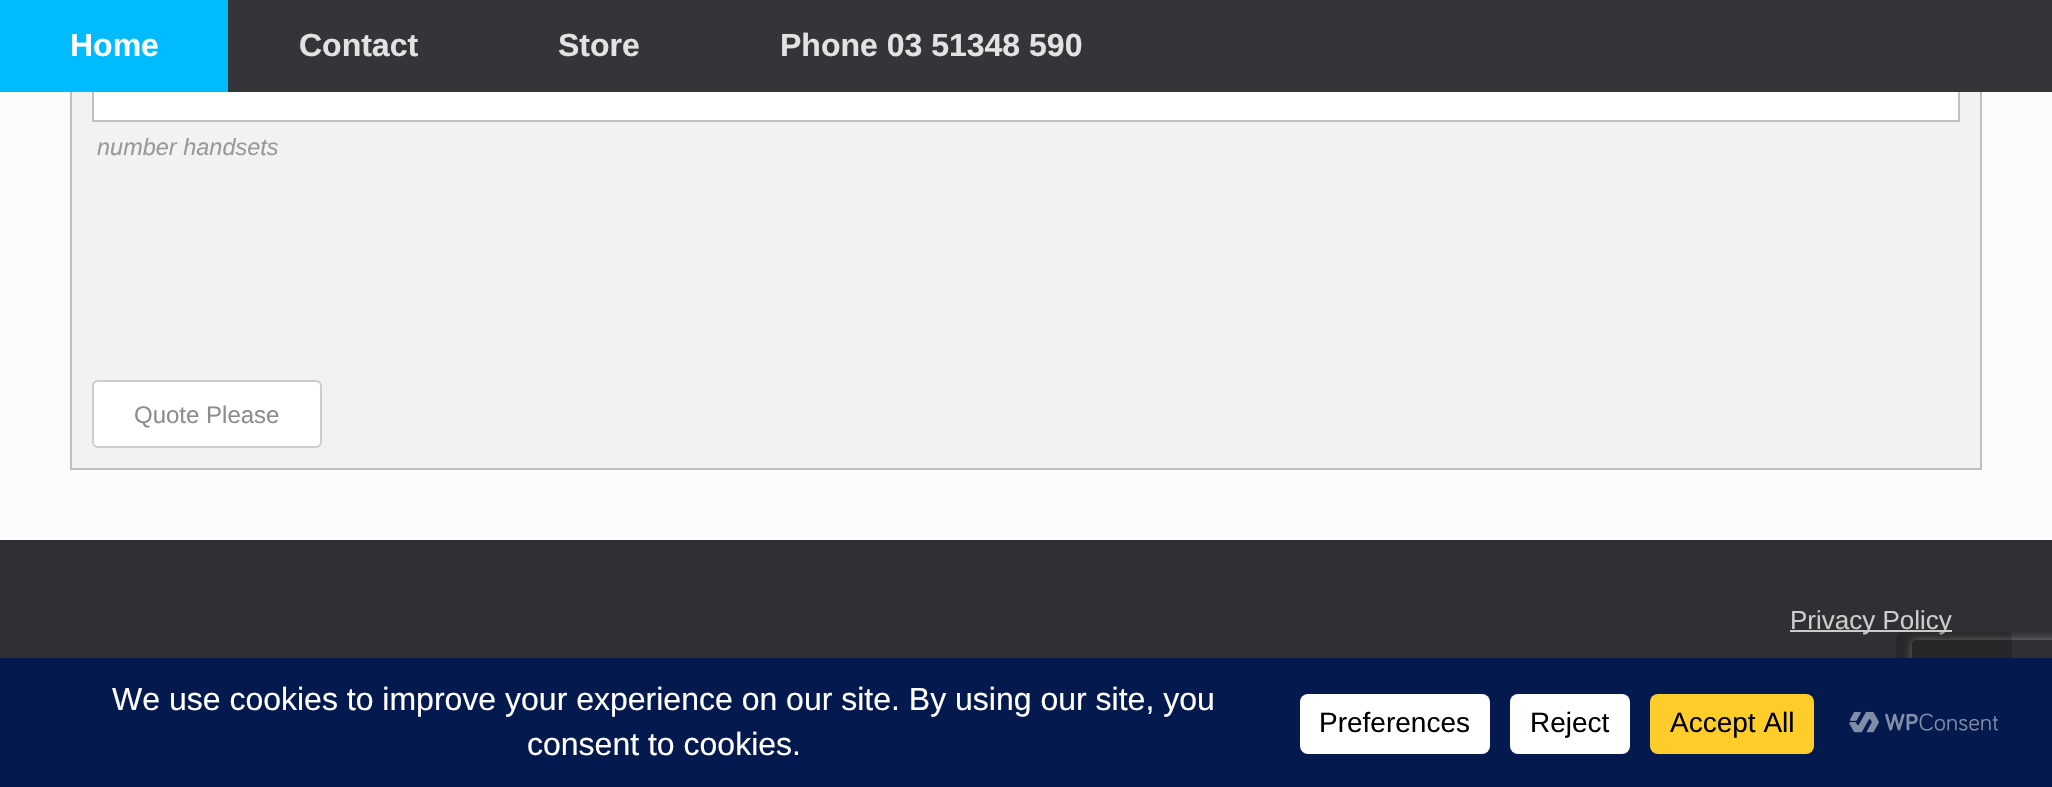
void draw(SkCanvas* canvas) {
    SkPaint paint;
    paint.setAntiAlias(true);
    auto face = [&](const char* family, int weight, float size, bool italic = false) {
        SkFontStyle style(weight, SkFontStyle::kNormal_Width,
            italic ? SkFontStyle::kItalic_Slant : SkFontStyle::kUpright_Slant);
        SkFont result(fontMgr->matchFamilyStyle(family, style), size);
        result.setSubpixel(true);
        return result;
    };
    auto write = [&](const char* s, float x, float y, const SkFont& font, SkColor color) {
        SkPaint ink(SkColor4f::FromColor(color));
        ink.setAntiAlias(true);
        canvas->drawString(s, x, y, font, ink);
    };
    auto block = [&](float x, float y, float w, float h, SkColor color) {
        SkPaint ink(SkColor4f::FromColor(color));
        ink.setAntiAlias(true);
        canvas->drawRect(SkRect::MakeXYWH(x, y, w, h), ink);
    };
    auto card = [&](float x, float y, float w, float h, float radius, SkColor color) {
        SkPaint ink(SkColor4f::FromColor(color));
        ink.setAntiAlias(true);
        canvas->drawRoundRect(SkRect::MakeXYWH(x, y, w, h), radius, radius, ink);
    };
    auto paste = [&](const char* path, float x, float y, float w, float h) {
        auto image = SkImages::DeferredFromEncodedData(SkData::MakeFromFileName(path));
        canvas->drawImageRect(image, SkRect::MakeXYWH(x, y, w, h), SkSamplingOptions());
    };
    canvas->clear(SkColorSetRGB(252, 252, 252));
    block(72, 92, 1908, 376, SkColorSetRGB(242, 242, 242));
    paint.setStyle(SkPaint::kStroke_Style);
    paint.setStrokeWidth(2);
    paint.setColor(SkColorSetRGB(192, 192, 192));
    canvas->drawRect(SkRect::MakeXYWH(71, -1, 1910, 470), paint);
    block(94, 92, 1864, 28, SK_ColorWHITE);
    canvas->drawRect(SkRect::MakeXYWH(93, 77, 1866, 44), paint);
    block(228, 0, 1824, 92, SkColorSetRGB(52, 53, 56));
    block(0, 0, 228, 92, SkColorSetRGB(0, 188, 255));
    auto kFont1 = face("Liberation Sans", 700, 32);
    write("Home", 70, 56, kFont1, SK_ColorWHITE);
    write("Contact", 299, 56, kFont1, SkColorSetRGB(226, 226, 226));
    write("Store", 558, 56, kFont1, SkColorSetRGB(226, 226, 226));
    write("Phone 03 51348 590", 780, 56, kFont1, SkColorSetRGB(226, 226, 226));
    auto kFont2 = face("Liberation Sans", 400, 23.5f, true);
    write("number handsets", 97, 155, kFont2, SkColorSetRGB(153, 153, 153));
    paint.setStyle(SkPaint::kFill_Style);
    paint.setColor(SK_ColorWHITE);
    canvas->drawRoundRect(SkRect::MakeXYWH(93, 381, 228, 66), 5, 5, paint);
    paint.setStyle(SkPaint::kStroke_Style);
    paint.setColor(SkColorSetRGB(204, 205, 206));
    canvas->drawRoundRect(SkRect::MakeXYWH(93, 381, 228, 66), 5, 5, paint);
    auto kFont3 = face("Liberation Sans", 400, 24);
    write("Quote Please", 134, 423, kFont3, SkColorSetRGB(141, 141, 141));
    block(0, 540, 2052, 118, SkColorSetRGB(47, 48, 51));
    block(1790, 630, 162, 2, SkColorSetRGB(204, 204, 204));
    auto kFont4 = face("Liberation Sans", 400, 26);
    write("Privacy Policy", 1790, 629, kFont4, SkColorSetRGB(204, 204, 204));
    canvas->save();
    canvas->clipPath(SkPathBuilder(SkPathFillType::kEvenOdd).moveTo(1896, 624).lineTo(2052, 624).lineTo(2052, 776).lineTo(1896, 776).close().moveTo(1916, 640).lineTo(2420, 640).cubicTo(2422, 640, 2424, 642, 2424, 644).lineTo(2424, 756).cubicTo(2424, 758, 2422, 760, 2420, 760).lineTo(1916, 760).cubicTo(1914, 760, 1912, 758, 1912, 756).lineTo(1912, 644).cubicTo(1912, 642, 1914, 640, 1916, 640).close().detach(), true);
    paint.setStyle(SkPaint::kFill_Style);
    paint.setColor(SkColorSetRGB(128, 128, 128));
    paint.setMaskFilter(SkMaskFilter::MakeBlur(kNormal_SkBlurStyle, 5));
    canvas->drawRoundRect(SkRect::MakeXYWH(1912, 640, 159, 120), 4, 4, paint);
    paint.setMaskFilter(nullptr);
    canvas->restore();
    card(1896, 632, 116, 116, 6, SkColorSetARGB(51, 0, 0, 0));
    block(0, 658, 2052, 129, SkColorSetRGB(4, 25, 78));
    auto kFont5 = face("Liberation Sans", 400, 32);
    write("We use cookies to improve your experience on our site. By using our site, you", 112, 710, kFont5, SK_ColorWHITE);
    write("consent to cookies.", 527, 755, kFont5, SK_ColorWHITE);
    card(1300, 694, 190, 60, 8, SK_ColorWHITE);
    auto kFont6 = face("Liberation Sans", 400, 28);
    write("Preferences", 1319, 732, kFont6, SK_ColorBLACK);
    card(1510, 694, 120, 60, 8, SK_ColorWHITE);
    write("Reject", 1530, 732, kFont6, SK_ColorBLACK);
    card(1650, 694, 164, 60, 8, SkColorSetRGB(255, 205, 42));
    write("Accept All", 1670, 732, kFont6, SK_ColorBLACK);
    paste("pic1.png", 1849, 711, 149, 22);
}
